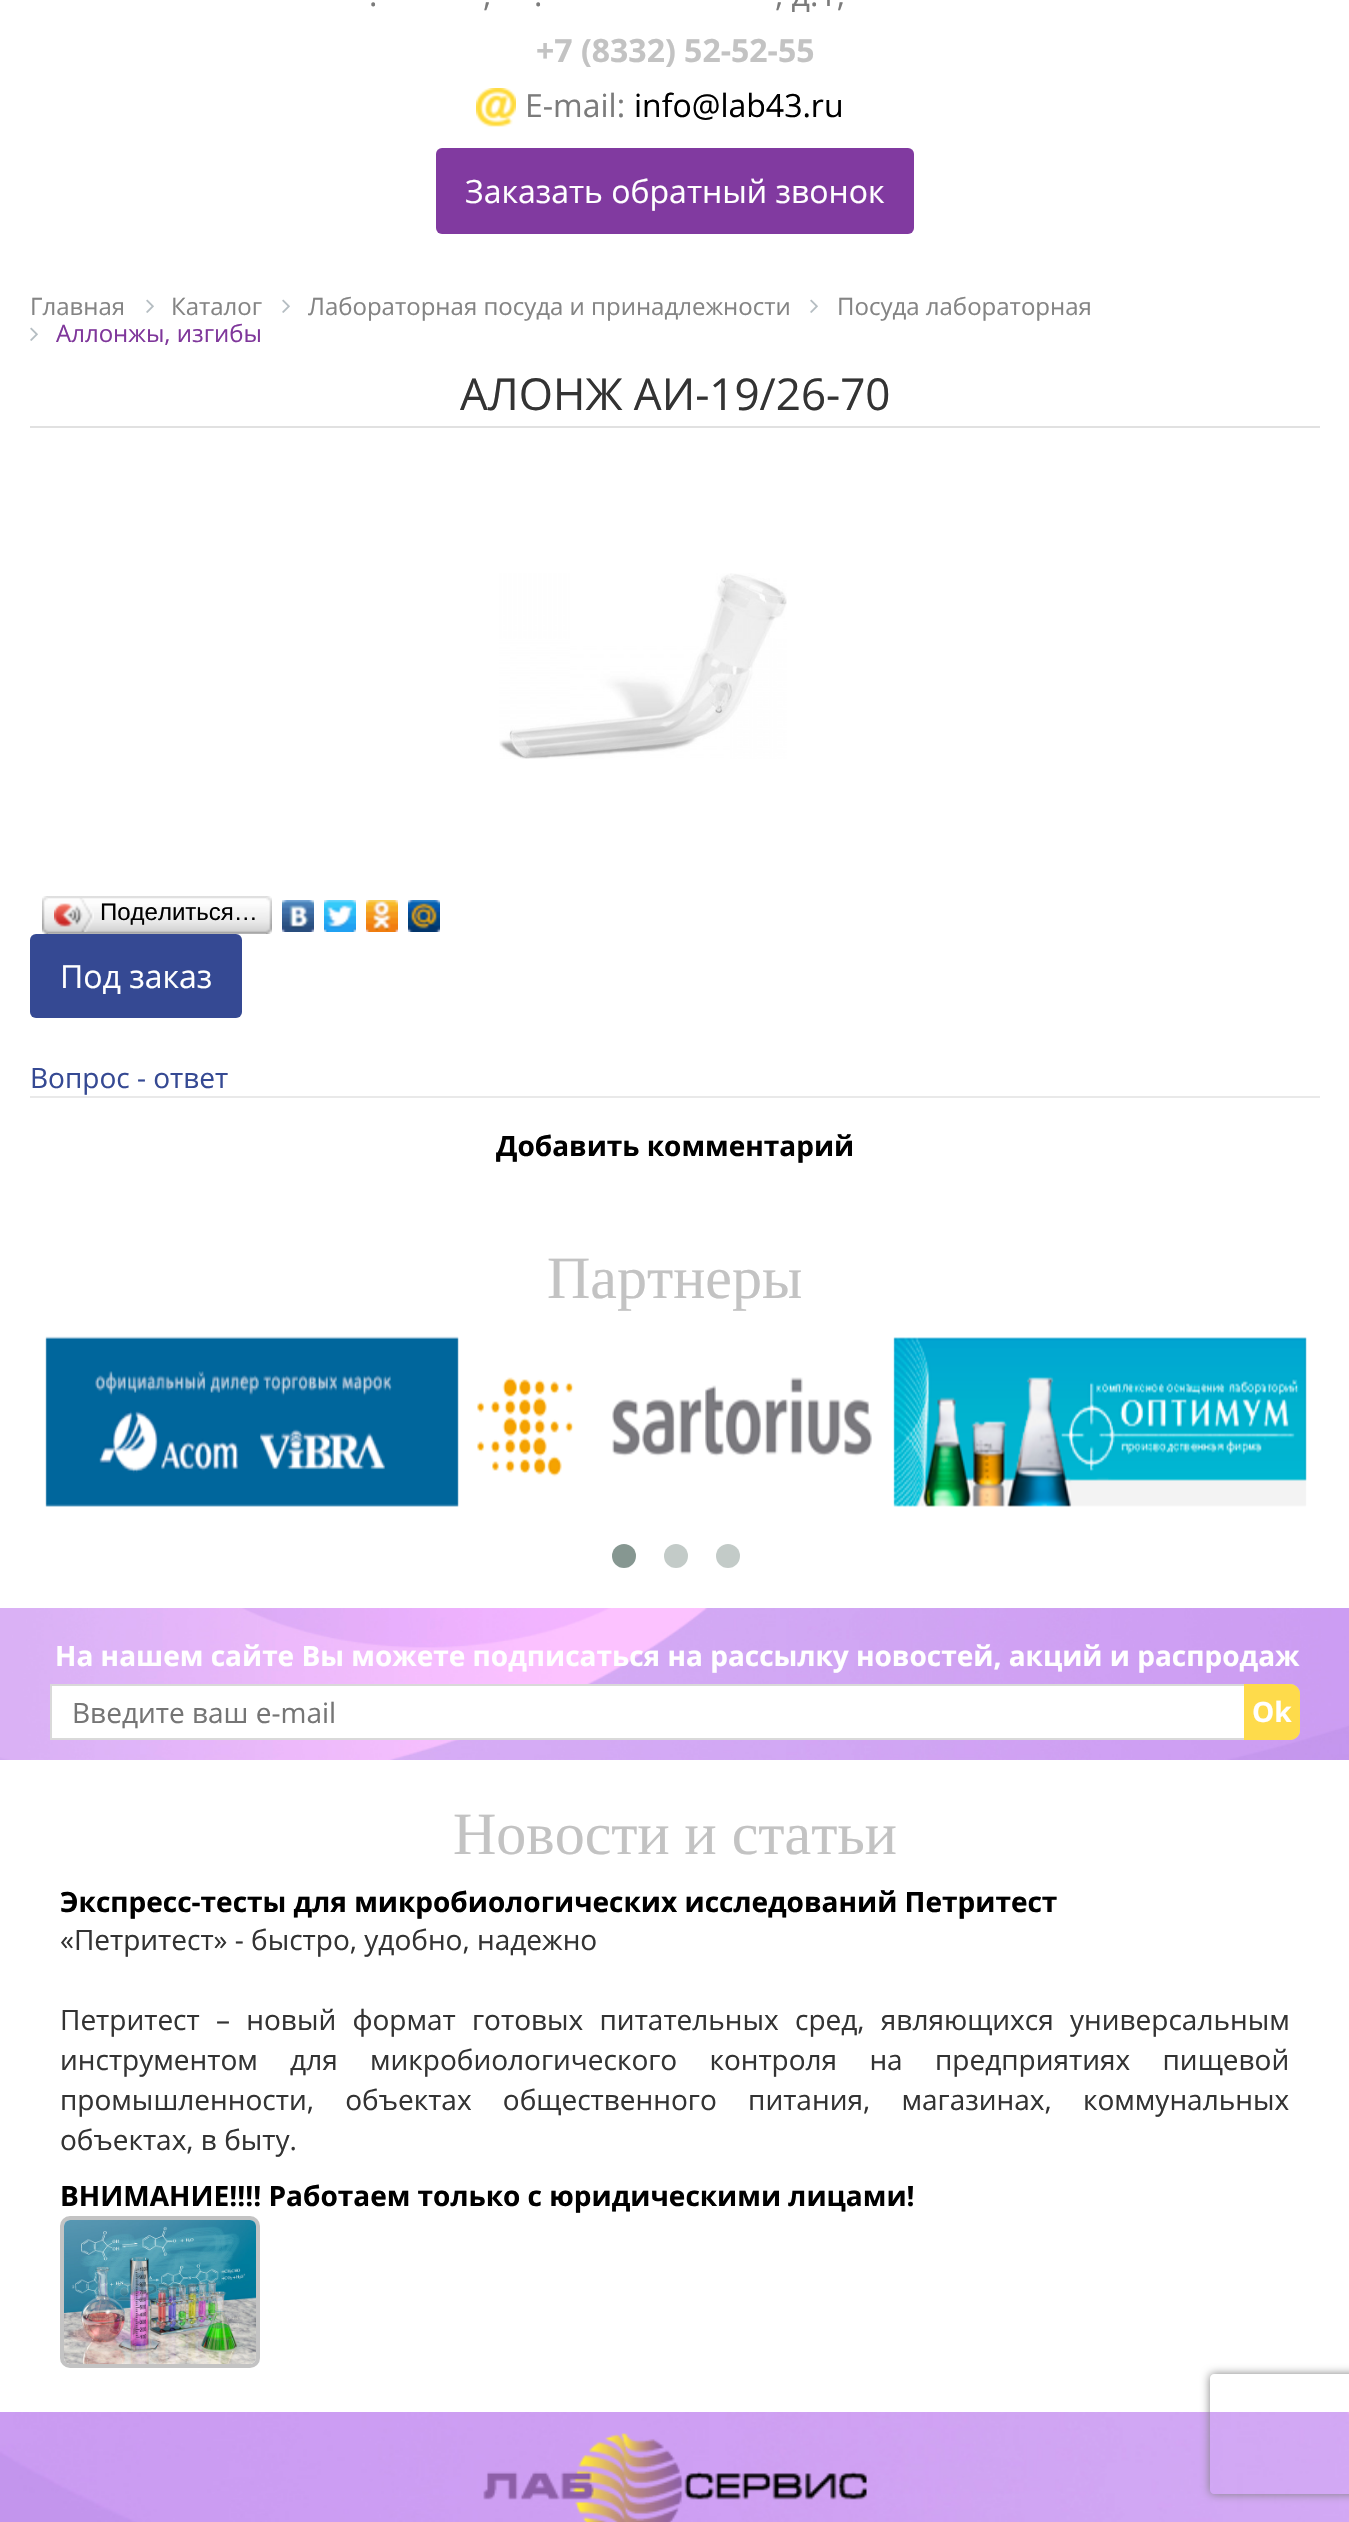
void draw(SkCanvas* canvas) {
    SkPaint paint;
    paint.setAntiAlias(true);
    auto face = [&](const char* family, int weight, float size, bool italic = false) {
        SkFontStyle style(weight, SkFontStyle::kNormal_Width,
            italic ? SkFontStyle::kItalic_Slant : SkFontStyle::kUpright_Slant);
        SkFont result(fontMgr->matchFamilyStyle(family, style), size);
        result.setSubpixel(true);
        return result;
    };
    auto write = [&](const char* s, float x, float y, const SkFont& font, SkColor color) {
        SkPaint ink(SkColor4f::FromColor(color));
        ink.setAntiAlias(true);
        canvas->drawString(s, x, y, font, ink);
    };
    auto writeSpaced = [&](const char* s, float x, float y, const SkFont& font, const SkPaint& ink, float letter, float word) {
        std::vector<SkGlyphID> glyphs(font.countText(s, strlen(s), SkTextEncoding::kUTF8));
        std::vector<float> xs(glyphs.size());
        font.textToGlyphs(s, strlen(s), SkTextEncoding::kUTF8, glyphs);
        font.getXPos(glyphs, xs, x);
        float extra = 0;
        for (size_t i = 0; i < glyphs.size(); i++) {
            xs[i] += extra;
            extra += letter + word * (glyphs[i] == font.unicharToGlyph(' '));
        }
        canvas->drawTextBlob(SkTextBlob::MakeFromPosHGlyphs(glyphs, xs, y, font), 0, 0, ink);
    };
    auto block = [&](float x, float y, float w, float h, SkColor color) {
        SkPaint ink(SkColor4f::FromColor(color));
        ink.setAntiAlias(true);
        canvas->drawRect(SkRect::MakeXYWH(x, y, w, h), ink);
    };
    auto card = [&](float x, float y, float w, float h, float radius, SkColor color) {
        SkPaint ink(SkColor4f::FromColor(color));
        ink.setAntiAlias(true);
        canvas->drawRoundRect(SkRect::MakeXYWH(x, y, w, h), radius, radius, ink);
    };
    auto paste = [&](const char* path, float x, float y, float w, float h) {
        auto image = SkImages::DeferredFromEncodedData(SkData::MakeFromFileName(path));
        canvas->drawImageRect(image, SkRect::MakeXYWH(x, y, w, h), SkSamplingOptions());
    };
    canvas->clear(SK_ColorWHITE);
    auto kFont1 = face("Open Sans", 400, 32);
    write(".", 369, 6, kFont1, SkColorSetRGB(123, 123, 123));
    write(",", 483, 6, kFont1, SkColorSetRGB(123, 123, 123));
    write(".", 534, 6, kFont1, SkColorSetRGB(123, 123, 123));
    write(", д.1,", 775, 6, kFont1, SkColorSetRGB(123, 123, 123));
    auto kFont2 = face("Open Sans", 700, 32);
    write("+7 (8332) 52-52-55", 536, 62, kFont2, SkColorSetRGB(195, 195, 195));
    paste("pic1.png", 476, 88, 40, 39);
    write("E-mail:", 525, 117, kFont1, SkColorSetRGB(123, 123, 123));
    write("info@lab43.ru", 634, 117, kFont1, SK_ColorBLACK);
    card(436, 148, 478, 86, 6, SkColorSetRGB(129, 58, 160));
    write("Заказать обратный звонок", 465, 203, kFont1, SK_ColorWHITE);
    auto kFont3 = face("Open Sans", 400, 24);
    write("Главная", 30, 315, kFont3, SkColorSetRGB(132, 132, 132));
    paste("pic2.png", 146, 299, 8, 14);
    write("Каталог", 171, 315, kFont3, SkColorSetRGB(132, 132, 132));
    paste("pic2.png", 282, 299, 8, 14);
    write("Лабораторная посуда и принадлежности", 308, 315, kFont3, SkColorSetRGB(132, 132, 132));
    paste("pic2.png", 810, 299, 8, 14);
    write("Посуда лабораторная", 837, 315, kFont3, SkColorSetRGB(132, 132, 132));
    paste("pic2.png", 30, 327, 8, 14);
    write("Аллонжы, изгибы", 56, 342, kFont3, SkColorSetRGB(127, 55, 155));
    block(30, 426, 1290, 2, SkColorSetRGB(225, 225, 225));
    auto kFont4 = face("Open Sans", 400, 44);
    write("АЛОНЖ АИ-19/26-70", 460, 410, kFont4, SkColorSetRGB(51, 51, 51));
    paste("pic3.png", 499, 573, 288, 186);
    paste("pic4.png", 48, 896, 218, 38);
    paste("pic5.png", 42, 896, 6, 38);
    paste("pic6.png", 54, 898, 40, 34);
    auto kFont5 = face("Liberation Sans", 400, 24);
    write("Поделиться…", 100, 920, kFont5, SK_ColorBLACK);
    paste("pic7.png", 266, 896, 6, 38);
    paste("pic8.png", 282, 900, 32, 32);
    paste("pic9.png", 324, 900, 32, 32);
    paste("pic10.png", 366, 900, 32, 32);
    paste("pic11.png", 408, 900, 32, 32);
    card(30, 934, 212, 84, 6, SkColorSetRGB(53, 73, 147));
    write("Под заказ", 60, 988, kFont1, SK_ColorWHITE);
    block(30, 1096, 1290, 2, SkColorSetRGB(233, 233, 233));
    auto kFont6 = face("Open Sans", 400, 28);
    write("Вопрос - ответ", 30, 1088, kFont6, SkColorSetRGB(53, 73, 147));
    auto kFont7 = face("Open Sans", 700, 28);
    write("Добавить комментарий", 496, 1156, kFont7, SK_ColorBLACK);
    auto kFont8 = face("Liberation Serif", 400, 60);
    write("Партнеры", 547, 1298, kFont8, SkColorSetRGB(195, 195, 195));
    paste("pic12.png", 45, 1336, 414, 171);
    paste("pic13.png", 477, 1377, 395, 100);
    paste("pic14.png", 893, 1337, 414, 170);
    paint.setColor(SkColorSetRGB(134, 151, 145));
    canvas->drawCircle(624, 1556, 12, paint);
    paint.setColor(SkColorSetRGB(195, 203, 200));
    canvas->drawCircle(676, 1556, 12, paint);
    canvas->drawCircle(728, 1556, 12, paint);
    paste("pic15.png", 0, 1608, 1349, 152);
    write("На нашем сайте Вы можете подписаться на рассылку новостей, акций и распродаж", 55, 1666, kFont7, SK_ColorWHITE);
    paint.setColor(SK_ColorWHITE);
    canvas->drawPath(SkPathBuilder().moveTo(51, 1685).lineTo(1290, 1685).cubicTo(1295, 1685, 1299, 1689, 1299, 1694).lineTo(1299, 1730).cubicTo(1299, 1735, 1295, 1739, 1290, 1739).lineTo(51, 1739).close().detach(), paint);
    paint.setStyle(SkPaint::kStroke_Style);
    paint.setStrokeWidth(2);
    paint.setColor(SkColorSetRGB(217, 217, 217));
    canvas->drawPath(SkPathBuilder().moveTo(51, 1685).lineTo(1290, 1685).cubicTo(1295, 1685, 1299, 1689, 1299, 1694).lineTo(1299, 1730).cubicTo(1299, 1735, 1295, 1739, 1290, 1739).lineTo(51, 1739).close().detach(), paint);
    write("Введите ваш e-mail", 72, 1723, kFont6, SkColorSetRGB(117, 117, 117));
    paint.setStyle(SkPaint::kFill_Style);
    paint.setColor(SkColorSetRGB(254, 219, 75));
    canvas->drawPath(SkPathBuilder().moveTo(1244, 1684).lineTo(1290, 1684).cubicTo(1295.5f, 1684, 1300, 1688.5f, 1300, 1694).lineTo(1300, 1730).cubicTo(1300, 1735.5f, 1295.5f, 1740, 1290, 1740).lineTo(1244, 1740).close().detach(), paint);
    write("Ok", 1252, 1722, kFont7, SK_ColorWHITE);
    write("Новости и статьи", 453, 1854, kFont8, SkColorSetRGB(195, 195, 195));
    write("Экспресс-тесты для микробиологических исследований Петритест", 60, 1912, kFont7, SK_ColorBLACK);
    write("«Петритест» - быстро, удобно, надежно", 60, 1950, kFont6, SkColorSetRGB(51, 51, 51));
    paint.setColor(SkColorSetRGB(51, 51, 51));
    writeSpaced("Петритест – новый формат готовых питательных сред, являющихся универсальным", 60, 2030, kFont6, paint, 0, 9);
    writeSpaced("инструментом для микробиологического контроля на предприятиях пищевой", 60, 2070, kFont6, paint, 0, 25);
    writeSpaced("промышленности, объектах общественного питания, магазинах, коммунальных", 60, 2110, kFont6, paint, 0, 24);
    write("объектах, в быту.", 60, 2150, kFont6, SkColorSetRGB(51, 51, 51));
    write("ВНИМАНИЕ!!!! Работаем только с юридическими лицами!", 60, 2206, kFont7, SK_ColorBLACK);
    paint.setStyle(SkPaint::kStroke_Style);
    paint.setStrokeWidth(4);
    paint.setColor(SkColorSetRGB(195, 195, 195));
    canvas->drawRoundRect(SkRect::MakeXYWH(62, 2218, 196, 148), 8, 8, paint);
    paste("pic16.png", 64, 2220, 192, 144);
    paste("pic17.png", 0, 2412, 1349, 110);
    canvas->save();
    canvas->clipPath(SkPathBuilder(SkPathFillType::kEvenOdd).moveTo(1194, 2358).lineTo(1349, 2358).lineTo(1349, 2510).lineTo(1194, 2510).close().moveTo(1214, 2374).lineTo(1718, 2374).cubicTo(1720, 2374, 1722, 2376, 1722, 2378).lineTo(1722, 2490).cubicTo(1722, 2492, 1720, 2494, 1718, 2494).lineTo(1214, 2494).cubicTo(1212, 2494, 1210, 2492, 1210, 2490).lineTo(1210, 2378).cubicTo(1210, 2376, 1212, 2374, 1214, 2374).close().detach(), true);
    paint.setStyle(SkPaint::kFill_Style);
    paint.setColor(SkColorSetRGB(128, 128, 128));
    paint.setMaskFilter(SkMaskFilter::MakeBlur(kNormal_SkBlurStyle, 5));
    canvas->drawRoundRect(SkRect::MakeXYWH(1210, 2374, 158, 120), 4, 4, paint);
    paint.setMaskFilter(nullptr);
    canvas->restore();
    paste("pic18.png", 483, 2433, 384, 89);
}
